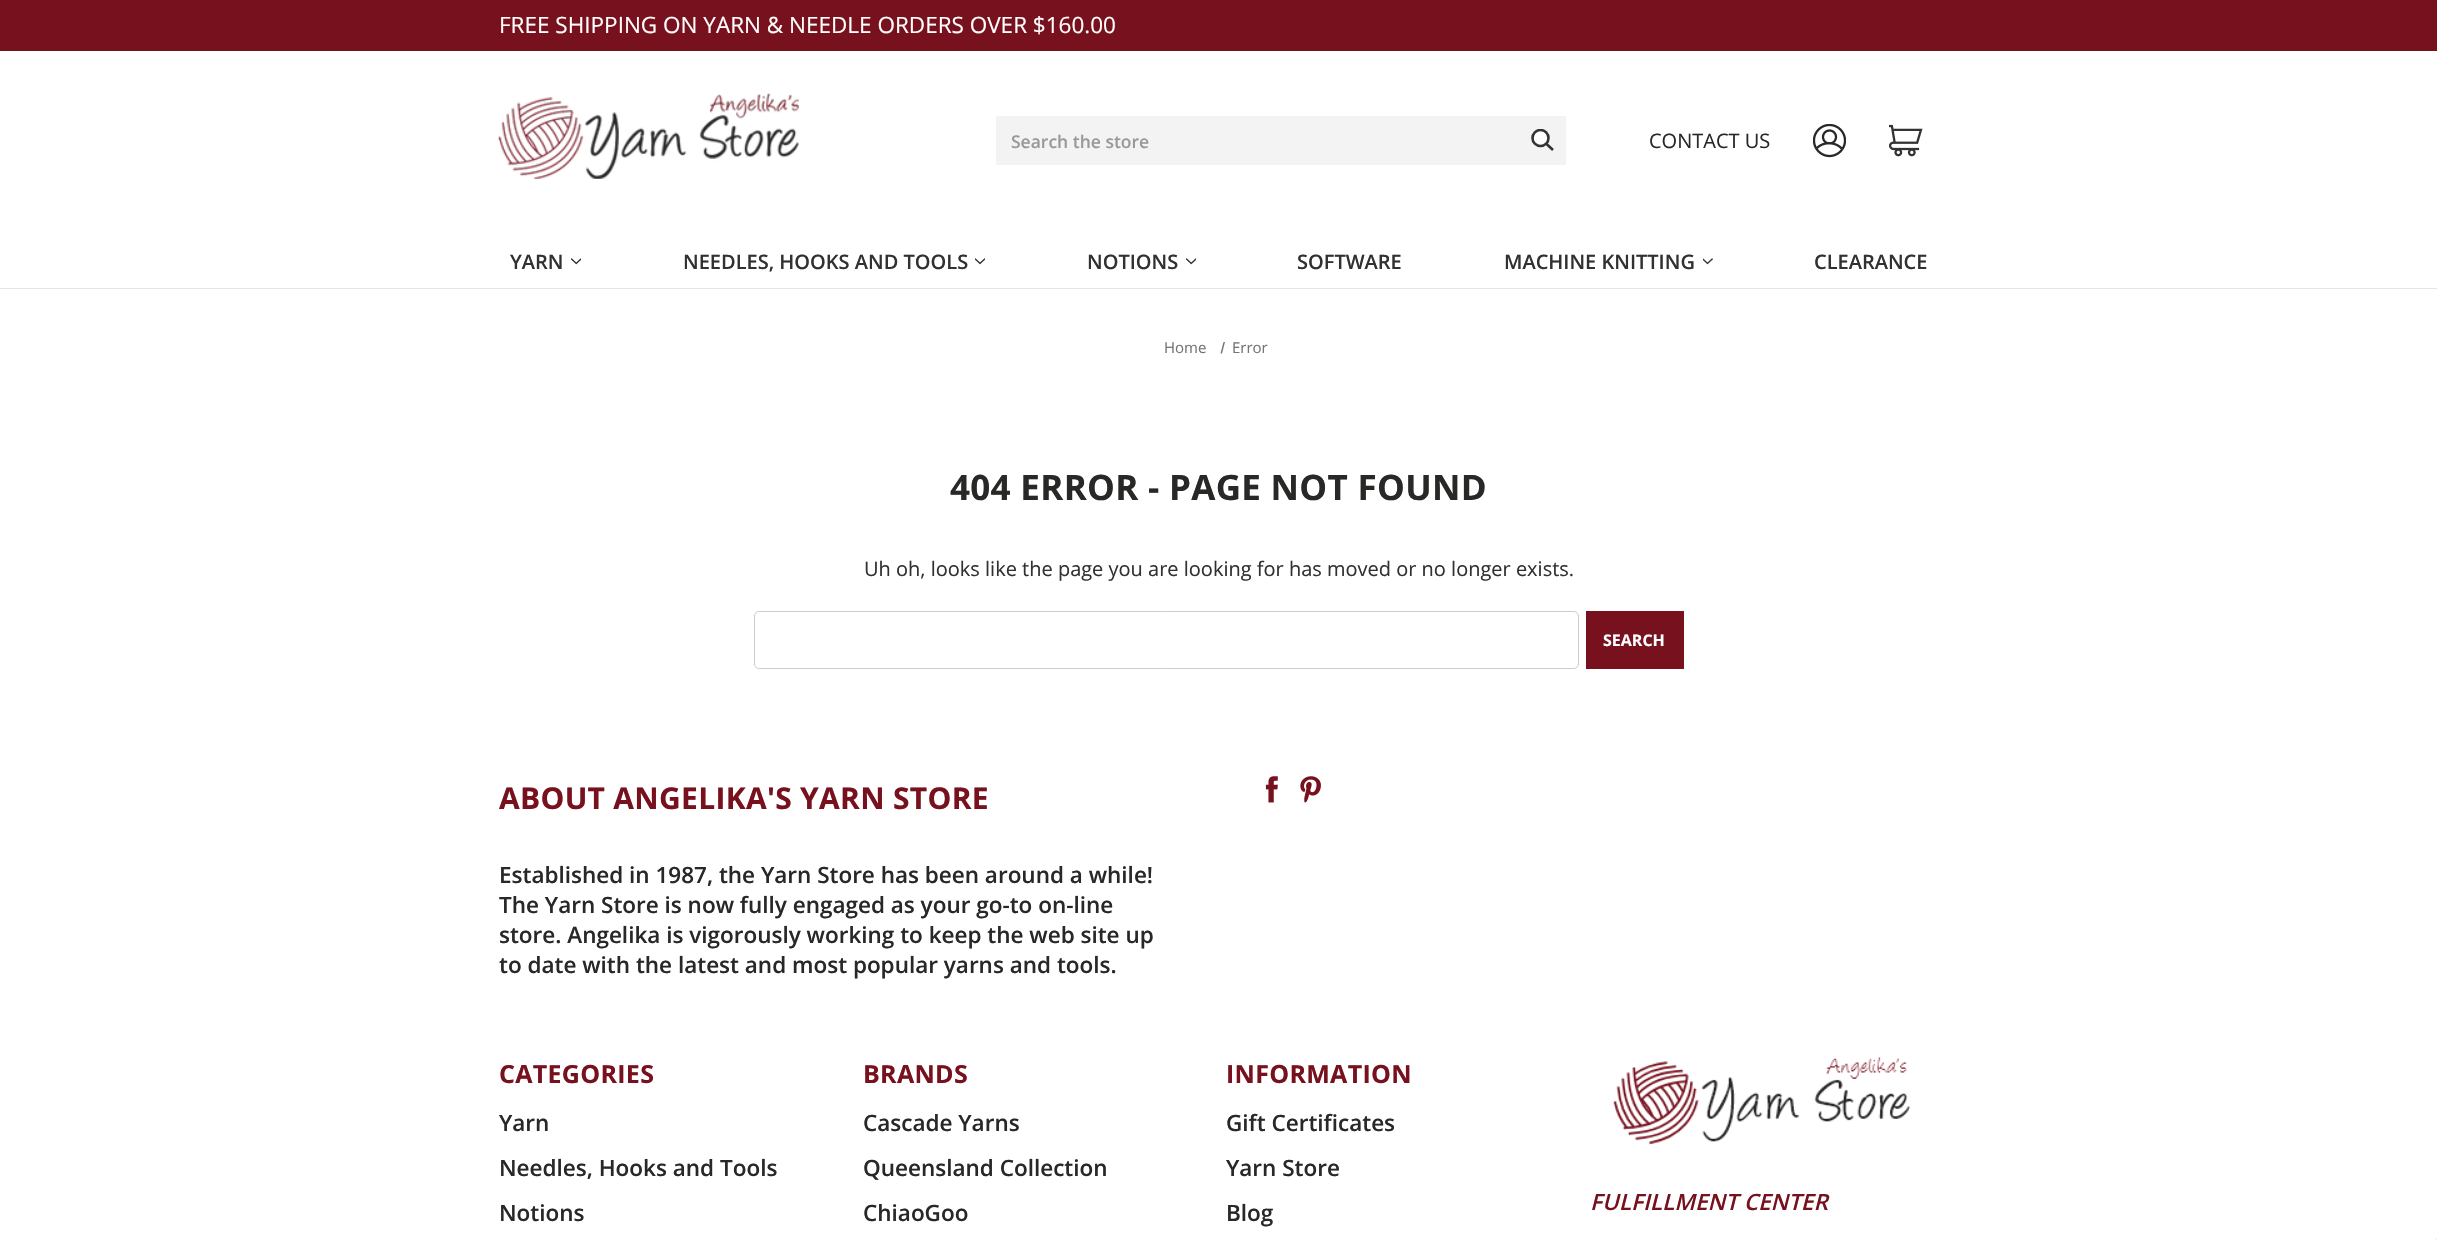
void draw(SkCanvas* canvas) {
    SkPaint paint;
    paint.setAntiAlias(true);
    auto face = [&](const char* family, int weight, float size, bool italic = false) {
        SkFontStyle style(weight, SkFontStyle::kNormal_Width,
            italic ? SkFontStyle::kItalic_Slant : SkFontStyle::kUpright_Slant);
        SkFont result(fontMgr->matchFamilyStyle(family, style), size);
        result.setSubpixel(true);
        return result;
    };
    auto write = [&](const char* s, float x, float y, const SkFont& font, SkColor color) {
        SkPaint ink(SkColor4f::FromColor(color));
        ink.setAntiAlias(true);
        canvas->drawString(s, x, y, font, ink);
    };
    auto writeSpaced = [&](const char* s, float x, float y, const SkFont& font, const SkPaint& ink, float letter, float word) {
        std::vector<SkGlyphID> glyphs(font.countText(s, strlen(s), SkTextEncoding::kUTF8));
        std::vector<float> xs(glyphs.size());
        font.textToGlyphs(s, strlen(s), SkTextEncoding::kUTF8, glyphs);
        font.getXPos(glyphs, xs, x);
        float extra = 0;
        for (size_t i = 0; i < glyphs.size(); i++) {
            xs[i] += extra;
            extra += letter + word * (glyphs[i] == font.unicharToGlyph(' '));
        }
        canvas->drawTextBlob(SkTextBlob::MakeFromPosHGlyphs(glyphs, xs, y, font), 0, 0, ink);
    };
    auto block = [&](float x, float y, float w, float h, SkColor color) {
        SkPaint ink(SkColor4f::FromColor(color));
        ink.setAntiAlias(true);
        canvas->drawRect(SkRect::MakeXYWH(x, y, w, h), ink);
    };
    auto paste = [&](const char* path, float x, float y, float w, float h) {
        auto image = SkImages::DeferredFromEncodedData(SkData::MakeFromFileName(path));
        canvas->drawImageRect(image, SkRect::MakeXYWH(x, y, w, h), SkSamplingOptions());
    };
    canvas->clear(SK_ColorWHITE);
    block(0, 0, 2437, 51, SkColorSetRGB(120, 17, 30));
    auto kFont1 = face("Open Sans", 400, 22.5f);
    write("FREE SHIPPING ON YARN & NEEDLE ORDERS OVER $160.00", 499, 33, kFont1, SK_ColorWHITE);
    paste("pic1.png", 498, 93, 301, 86);
    block(996, 116, 570, 49, SkColorSetRGB(243, 243, 243));
    auto kFont2 = face("Open Sans", 600, 17.5f);
    write("Search the store", 1011, 148, kFont2, SkColorSetRGB(153, 153, 153));
    paint.setStyle(SkPaint::kStroke_Style);
    paint.setStrokeWidth(2.6f);
    paint.setColor(SkColorSetRGB(51, 51, 51));
    canvas->drawPath(SkPathBuilder().moveTo(1546, 143.5f).lineTo(1553, 150).detach(), paint);
    paint.setStyle(SkPaint::kFill_Style);
    paint.setColor(SK_ColorWHITE);
    canvas->drawCircle(1540.5f, 138, 8, paint);
    canvas->save();
    canvas->clipRect(SkRect::MakeXYWH(1531, 129, 23, 22));
    paint.setStyle(SkPaint::kStroke_Style);
    paint.setColor(SkColorSetRGB(51, 51, 51));
    canvas->drawCircle(1540.5f, 138, 8, paint);
    canvas->restore();
    auto kFont3 = face("Open Sans", 400, 20);
    write("CONTACT US", 1649, 148, kFont3, SkColorSetRGB(40, 40, 39));
    paste("pic2.png", 1813, 124, 33, 34);
    paste("pic3.png", 1889, 124, 34, 33);
    auto kFont4 = face("Open Sans", 600, 20);
    write("YARN", 510, 269, kFont4, SkColorSetRGB(49, 49, 49));
    paste("pic4.png", 571, 258, 10, 7);
    write("NEEDLES, HOOKS AND TOOLS", 683, 269, kFont4, SkColorSetRGB(49, 49, 49));
    paste("pic5.png", 975, 258, 10, 7);
    write("NOTIONS", 1087, 269, kFont4, SkColorSetRGB(49, 49, 49));
    paste("pic4.png", 1186, 258, 10, 7);
    write("SOFTWARE", 1297, 269, kFont4, SkColorSetRGB(49, 49, 49));
    write("MACHINE KNITTING", 1504, 269, kFont4, SkColorSetRGB(49, 49, 49));
    paste("pic6.png", 1703, 258, 10, 7);
    write("CLEARANCE", 1814, 269, kFont4, SkColorSetRGB(49, 49, 49));
    block(0, 288, 2437, 1, SkColorSetRGB(229, 229, 229));
    auto kFont5 = face("Open Sans", 400, 15);
    write("Home", 1164, 353, kFont5, SkColorSetRGB(117, 117, 117));
    paint.setStyle(SkPaint::kFill_Style);
    paint.setColor(SkColorSetRGB(117, 117, 117));
    canvas->drawPath(SkPathBuilder().moveTo(1223.5f, 342).lineTo(1225, 342).lineTo(1222, 353.5f).lineTo(1220.5f, 353.5f).close().detach(), paint);
    write("Error", 1232, 353, kFont5, SkColorSetRGB(117, 117, 117));
    auto kFont6 = face("Open Sans", 700, 35);
    paint.setColor(SkColorSetRGB(40, 40, 39));
    writeSpaced("404 ERROR - PAGE NOT FOUND", 950, 500, kFont6, paint, 0.3f, 0);
    write("Uh oh, looks like the page you are looking for has moved or no longer exists.", 864, 576, kFont3, SkColorSetRGB(49, 49, 49));
    paint.setStyle(SkPaint::kStroke_Style);
    paint.setStrokeWidth(1);
    paint.setColor(SkColorSetRGB(204, 204, 204));
    canvas->drawRoundRect(SkRect::MakeXYWH(754.5f, 611.5f, 824, 57), 4.5f, 4.5f, paint);
    block(1586, 611, 98, 58, SkColorSetRGB(120, 17, 30));
    auto kFont7 = face("Open Sans", 700, 16);
    write("SEARCH", 1603, 646, kFont7, SK_ColorWHITE);
    auto kFont8 = face("Open Sans", 700, 30);
    paint.setStyle(SkPaint::kFill_Style);
    paint.setColor(SkColorSetRGB(120, 17, 30));
    writeSpaced("ABOUT ANGELIKA'S YARN STORE", 499, 809, kFont8, paint, 0.3f, 0);
    auto kFont9 = face("Open Sans", 600, 22.5f);
    write("Established in 1987, the Yarn Store has been around a while!", 499, 883, kFont9, SkColorSetRGB(40, 40, 39));
    write("The Yarn Store is now fully engaged as your go-to on-line", 499, 913, kFont9, SkColorSetRGB(40, 40, 39));
    write("store. Angelika is vigorously working to keep the web site up", 499, 943, kFont9, SkColorSetRGB(40, 40, 39));
    write("to date with the latest and most popular yarns and tools.", 499, 973, kFont9, SkColorSetRGB(40, 40, 39));
    paste("pic7.png", 1265, 776, 13, 27);
    paste("pic8.png", 1300, 776, 21, 27);
    auto kFont10 = face("Open Sans", 700, 25);
    writeSpaced("CATEGORIES", 499, 1083, kFont10, paint, 0.3f, 0);
    write("Yarn", 499, 1131, kFont9, SkColorSetRGB(40, 40, 39));
    write("Needles, Hooks and Tools", 499, 1176, kFont9, SkColorSetRGB(40, 40, 39));
    write("Notions", 499, 1221, kFont9, SkColorSetRGB(40, 40, 39));
    writeSpaced("BRANDS", 863, 1083, kFont10, paint, 0.3f, 0);
    write("Cascade Yarns", 863, 1131, kFont9, SkColorSetRGB(40, 40, 39));
    write("Queensland Collection", 863, 1176, kFont9, SkColorSetRGB(40, 40, 39));
    write("ChiaoGoo", 863, 1221, kFont9, SkColorSetRGB(40, 40, 39));
    writeSpaced("INFORMATION", 1226, 1083, kFont10, paint, 0.3f, 0);
    write("Gift Certificates", 1226, 1131, kFont9, SkColorSetRGB(40, 40, 39));
    write("Yarn Store", 1226, 1176, kFont9, SkColorSetRGB(40, 40, 39));
    write("Blog", 1226, 1221, kFont9, SkColorSetRGB(40, 40, 39));
    paste("pic9.png", 1613, 1057, 298, 88);
    auto kFont11 = face("Open Sans", 600, 22.5f, true);
    write("FULFILLMENT CENTER", 1590, 1210, kFont11, SkColorSetRGB(120, 17, 30));
    block(2435, 1238, 2, 2, SkColorSetRGB(245, 245, 245));
}
